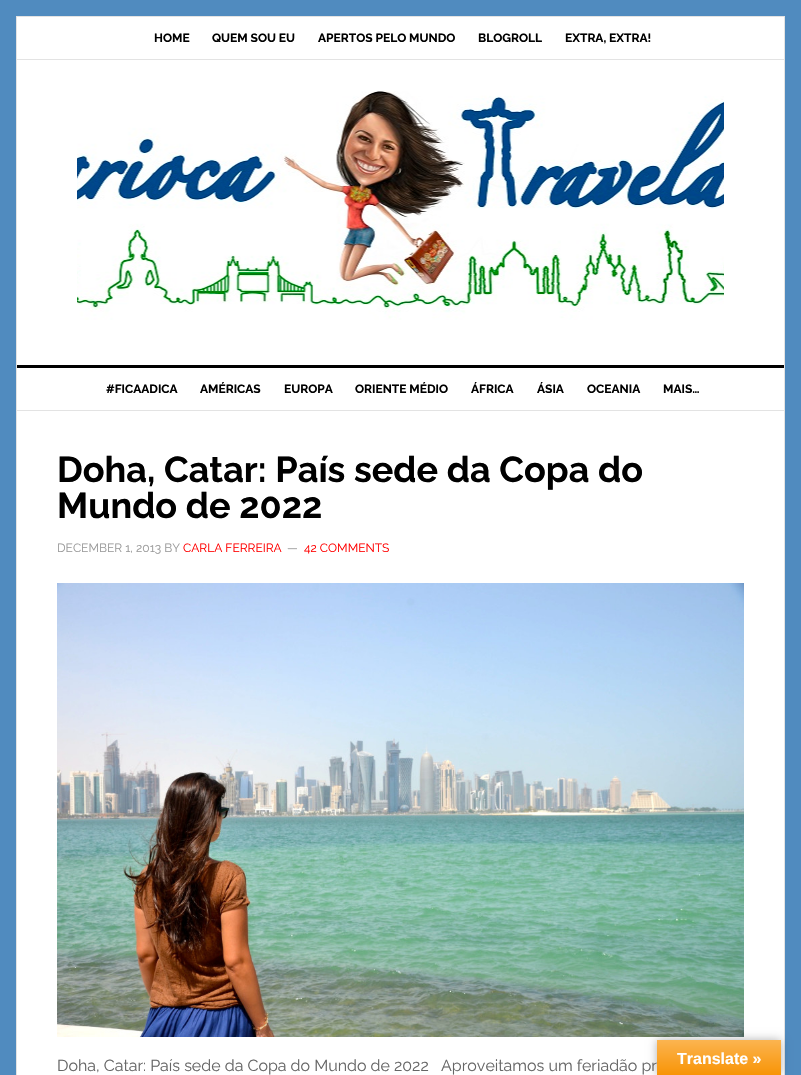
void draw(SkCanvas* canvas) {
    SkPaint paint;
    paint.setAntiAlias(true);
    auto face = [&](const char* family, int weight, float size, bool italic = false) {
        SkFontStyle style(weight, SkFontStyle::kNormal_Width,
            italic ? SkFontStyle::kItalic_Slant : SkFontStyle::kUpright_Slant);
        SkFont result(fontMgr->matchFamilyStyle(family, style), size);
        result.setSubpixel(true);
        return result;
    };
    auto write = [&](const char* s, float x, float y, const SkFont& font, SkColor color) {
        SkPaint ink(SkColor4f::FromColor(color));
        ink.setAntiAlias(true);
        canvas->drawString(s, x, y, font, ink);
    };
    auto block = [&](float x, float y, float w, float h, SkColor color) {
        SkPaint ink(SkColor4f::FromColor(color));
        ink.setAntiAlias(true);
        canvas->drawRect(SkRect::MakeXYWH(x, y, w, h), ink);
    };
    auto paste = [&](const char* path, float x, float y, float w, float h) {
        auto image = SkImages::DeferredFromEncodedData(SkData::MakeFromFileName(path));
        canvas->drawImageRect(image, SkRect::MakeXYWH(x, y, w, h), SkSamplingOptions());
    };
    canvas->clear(SkColorSetRGB(80, 139, 191));
    paint.setColor(SK_ColorWHITE);
    canvas->drawRect(SkRect::MakeXYWH(16.5f, 16.5f, 768, 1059), paint);
    paint.setStyle(SkPaint::kStroke_Style);
    paint.setStrokeWidth(1);
    paint.setColor(SkColorSetRGB(227, 227, 227));
    canvas->drawRect(SkRect::MakeXYWH(16.5f, 16.5f, 768, 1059), paint);
    block(17, 59, 767, 1, SkColorSetRGB(227, 227, 227));
    auto kFont1 = face("Raleway", 700, 12);
    write("HOME", 154, 42, kFont1, SK_ColorBLACK);
    write("QUEM SOU EU", 212, 42, kFont1, SK_ColorBLACK);
    write("APERTOS PELO MUNDO", 318, 42, kFont1, SK_ColorBLACK);
    write("BLOGROLL", 478, 42, kFont1, SK_ColorBLACK);
    write("EXTRA, EXTRA!", 565, 42, kFont1, SK_ColorBLACK);
    paste("pic1.png", 77, 91, 647, 229);
    block(17, 365, 767, 3, SK_ColorBLACK);
    block(17, 410, 767, 1, SkColorSetRGB(227, 227, 227));
    write("#FICAADICA", 106, 393, kFont1, SK_ColorBLACK);
    write("AMÉRICAS", 200, 393, kFont1, SK_ColorBLACK);
    write("EUROPA", 284, 393, kFont1, SK_ColorBLACK);
    write("ORIENTE MÉDIO", 355, 393, kFont1, SK_ColorBLACK);
    write("ÁFRICA", 471, 393, kFont1, SK_ColorBLACK);
    write("ÁSIA", 537, 393, kFont1, SK_ColorBLACK);
    write("OCEANIA", 587, 393, kFont1, SK_ColorBLACK);
    write("MAIS…", 663, 393, kFont1, SK_ColorBLACK);
    auto kFont2 = face("Raleway", 700, 36);
    write("Doha, Catar: País sede da Copa do", 57, 482, kFont2, SK_ColorBLACK);
    write("Mundo de 2022", 57, 518, kFont2, SK_ColorBLACK);
    auto kFont3 = face("Raleway", 400, 12);
    write("DECEMBER 1, 2013 BY", 57, 552, kFont3, SkColorSetRGB(153, 153, 153));
    write("CARLA FERREIRA", 183, 552, kFont3, SkColorSetRGB(255, 0, 0));
    write("—", 287, 552, kFont3, SkColorSetRGB(153, 153, 153));
    write("42 COMMENTS", 304, 552, kFont3, SkColorSetRGB(255, 0, 0));
    paste("pic2.png", 57, 583, 687, 454);
    auto kFont4 = face("Raleway", 400, 16);
    write("Doha, Catar: País sede da Copa do Mundo de 2022   Aproveitamos um feriadão pr", 57, 1071, kFont4, SkColorSetRGB(102, 102, 102));
    paint.setStyle(SkPaint::kFill_Style);
    paint.setColor(SkColorSetARGB(77, 0, 0, 0));
    paint.setMaskFilter(SkMaskFilter::MakeBlur(kNormal_SkBlurStyle, 4.5f));
    canvas->drawRect(SkRect::MakeXYWH(657, 1040, 124, 35), paint);
    paint.setMaskFilter(nullptr);
    {
        const SkColor colors[] = {SkColorSetRGB(251, 180, 80), SkColorSetRGB(248, 148, 6)};
        const float stops[] = {0, 1};
        const SkPoint ends[] = {{719, 1040}, {719, 1075}};
        paint.setShader(SkGradientShader::MakeLinear(ends, colors, stops, 2, SkTileMode::kClamp));
        paint.setAlpha(255);
    }
    canvas->drawRect(SkRect::MakeXYWH(657, 1040, 124, 35), paint);
    auto kFont5 = face("Liberation Sans", 700, 16);
    write("Translate »", 677, 1064, kFont5, SK_ColorWHITE);
}
